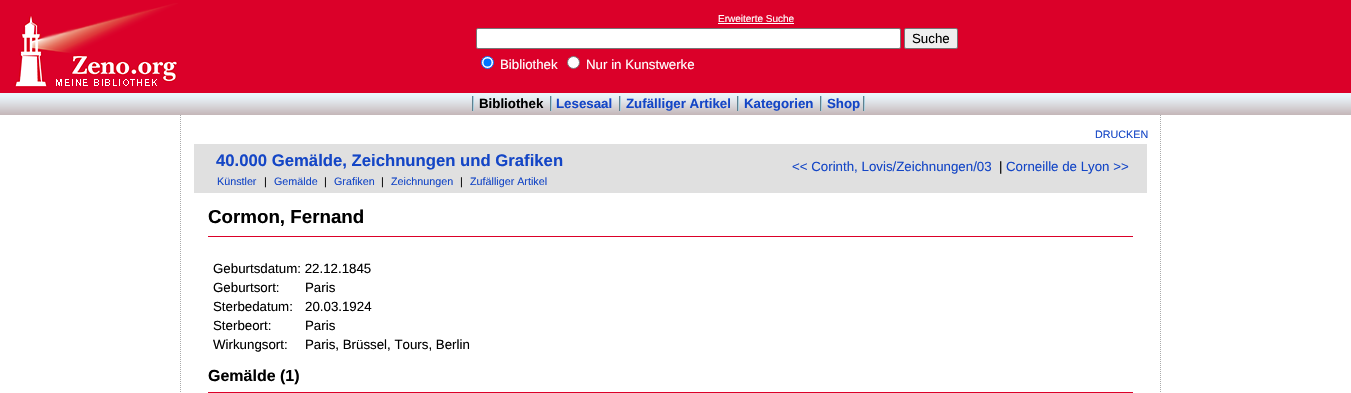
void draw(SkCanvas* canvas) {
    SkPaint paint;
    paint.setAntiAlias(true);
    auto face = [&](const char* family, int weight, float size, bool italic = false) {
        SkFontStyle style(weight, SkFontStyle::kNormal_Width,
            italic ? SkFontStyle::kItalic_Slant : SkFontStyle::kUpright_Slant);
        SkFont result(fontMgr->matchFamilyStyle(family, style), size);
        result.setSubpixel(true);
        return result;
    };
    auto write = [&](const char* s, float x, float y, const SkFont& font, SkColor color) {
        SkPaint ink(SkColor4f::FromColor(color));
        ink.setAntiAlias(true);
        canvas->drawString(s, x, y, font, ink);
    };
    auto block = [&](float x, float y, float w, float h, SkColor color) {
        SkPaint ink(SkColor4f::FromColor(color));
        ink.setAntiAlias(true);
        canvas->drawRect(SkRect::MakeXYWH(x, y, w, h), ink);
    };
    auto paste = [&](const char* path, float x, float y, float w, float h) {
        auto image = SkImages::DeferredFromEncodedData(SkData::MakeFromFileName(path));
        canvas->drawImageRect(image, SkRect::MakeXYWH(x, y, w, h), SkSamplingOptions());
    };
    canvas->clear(SK_ColorWHITE);
    block(0, 0, 1351, 93, SkColorSetRGB(219, 0, 41));
    paste("pic1.png", 14, 3, 164, 85);
    auto kFont1 = face("Liberation Sans", 400, 10);
    write("Erweiterte Suche", 718, 22, kFont1, SK_ColorWHITE);
    block(718, 23, 76, 1, SK_ColorWHITE);
    paint.setColor(SK_ColorWHITE);
    canvas->drawRoundRect(SkRect::MakeXYWH(476.5f, 28.5f, 424, 20), 1.5f, 1.5f, paint);
    paint.setStyle(SkPaint::kStroke_Style);
    paint.setStrokeWidth(1);
    paint.setColor(SkColorSetRGB(118, 118, 118));
    canvas->drawRoundRect(SkRect::MakeXYWH(476.5f, 28.5f, 424, 20), 1.5f, 1.5f, paint);
    paint.setStyle(SkPaint::kFill_Style);
    paint.setColor(SkColorSetRGB(239, 239, 239));
    canvas->drawRoundRect(SkRect::MakeXYWH(904.5f, 28.5f, 53, 20), 1.5f, 1.5f, paint);
    paint.setStyle(SkPaint::kStroke_Style);
    paint.setColor(SkColorSetRGB(118, 118, 118));
    canvas->drawRoundRect(SkRect::MakeXYWH(904.5f, 28.5f, 53, 20), 1.5f, 1.5f, paint);
    auto kFont2 = face("Liberation Sans", 400, 13.3f);
    write("Suche", 912, 43, kFont2, SK_ColorBLACK);
    paint.setStyle(SkPaint::kFill_Style);
    paint.setColor(SK_ColorWHITE);
    canvas->drawCircle(487.5f, 62.5f, 6, paint);
    paint.setStyle(SkPaint::kStroke_Style);
    paint.setColor(SkColorSetRGB(0, 117, 255));
    canvas->drawCircle(487.5f, 62.5f, 6, paint);
    paint.setStyle(SkPaint::kFill_Style);
    canvas->drawCircle(487.5f, 62.5f, 4, paint);
    write("Bibliothek", 500, 69, kFont2, SK_ColorWHITE);
    paint.setColor(SK_ColorWHITE);
    canvas->drawCircle(573.5f, 62.5f, 6, paint);
    paint.setStyle(SkPaint::kStroke_Style);
    paint.setColor(SkColorSetRGB(118, 118, 118));
    canvas->drawCircle(573.5f, 62.5f, 6, paint);
    write("Nur in Kunstwerke", 586, 69, kFont2, SK_ColorWHITE);
    paste("pic2.png", 0, 93, 1351, 22);
    paste("pic3.png", 472, 96, 2, 15);
    auto kFont3 = face("Liberation Sans", 700, 13.3f);
    write("Bibliothek", 479, 108, kFont3, SK_ColorBLACK);
    paste("pic3.png", 550, 96, 2, 15);
    write("Lesesaal", 556, 108, kFont3, SkColorSetRGB(20, 70, 198));
    paste("pic3.png", 619, 96, 2, 15);
    write("Zufälliger Artikel", 626, 108, kFont3, SkColorSetRGB(20, 70, 198));
    paste("pic3.png", 737, 96, 2, 15);
    write("Kategorien", 744, 108, kFont3, SkColorSetRGB(20, 70, 198));
    paste("pic3.png", 820, 96, 2, 15);
    write("Shop", 827, 108, kFont3, SkColorSetRGB(20, 70, 198));
    paste("pic3.png", 863, 96, 2, 15);
    paint.setColor(SkColorSetRGB(170, 170, 170));
    paint.setPathEffect(SkDashPathEffect::Make({{1, 1}}, 0));
    canvas->drawPath(SkPathBuilder().moveTo(1160.5f, 115).lineTo(1160.5f, 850).detach(), paint);
    paint.setPathEffect(nullptr);
    paint.setPathEffect(SkDashPathEffect::Make({{1, 1}}, 0));
    canvas->drawPath(SkPathBuilder().moveTo(180.5f, 115).lineTo(180.5f, 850).detach(), paint);
    paint.setPathEffect(nullptr);
    auto kFont4 = face("Liberation Sans", 400, 10.75f);
    write("DRUCKEN", 1095, 138, kFont4, SkColorSetRGB(20, 70, 198));
    block(194, 144, 953, 49, SkColorSetRGB(224, 224, 224));
    auto kFont5 = face("Liberation Sans", 700, 16.7f);
    write("40.000 Gemälde, Zeichnungen und Grafiken", 216, 166, kFont5, SkColorSetRGB(20, 70, 198));
    write("<< Corinth, Lovis/Zeichnungen/03", 792, 171, kFont2, SkColorSetRGB(20, 70, 198));
    write("|", 999, 171, kFont2, SK_ColorBLACK);
    write("Corneille de Lyon >>", 1006, 171, kFont2, SkColorSetRGB(20, 70, 198));
    write("Künstler", 217, 185, kFont4, SkColorSetRGB(20, 70, 198));
    write("|", 264, 185, kFont4, SK_ColorBLACK);
    write("Gemälde", 274, 185, kFont4, SkColorSetRGB(20, 70, 198));
    write("|", 324, 185, kFont4, SK_ColorBLACK);
    write("Grafiken", 334, 185, kFont4, SkColorSetRGB(20, 70, 198));
    write("|", 381, 185, kFont4, SK_ColorBLACK);
    write("Zeichnungen", 391, 185, kFont4, SkColorSetRGB(20, 70, 198));
    write("|", 460, 185, kFont4, SK_ColorBLACK);
    write("Zufälliger Artikel", 470, 185, kFont4, SkColorSetRGB(20, 70, 198));
    block(208, 236, 925, 1, SkColorSetRGB(219, 0, 41));
    auto kFont6 = face("Liberation Sans", 700, 18.75f);
    write("Cormon, Fernand", 208, 223, kFont6, SK_ColorBLACK);
    write("Geburtsdatum: 22.12.1845", 213, 273, kFont2, SK_ColorBLACK);
    write("Geburtsort:", 213, 292, kFont2, SK_ColorBLACK);
    write("Paris", 305, 292, kFont2, SK_ColorBLACK);
    write("Sterbedatum:", 213, 311, kFont2, SK_ColorBLACK);
    write("20.03.1924", 305, 311, kFont2, SK_ColorBLACK);
    write("Sterbeort:", 213, 330, kFont2, SK_ColorBLACK);
    write("Paris", 305, 330, kFont2, SK_ColorBLACK);
    write("Wirkungsort:", 213, 349, kFont2, SK_ColorBLACK);
    write("Paris, Brüssel, Tours, Berlin", 305, 349, kFont2, SK_ColorBLACK);
    block(208, 392, 925, 1, SkColorSetRGB(219, 0, 41));
    auto kFont7 = face("Liberation Sans", 700, 16);
    write("Gemälde (1)", 208, 381, kFont7, SK_ColorBLACK);
}
